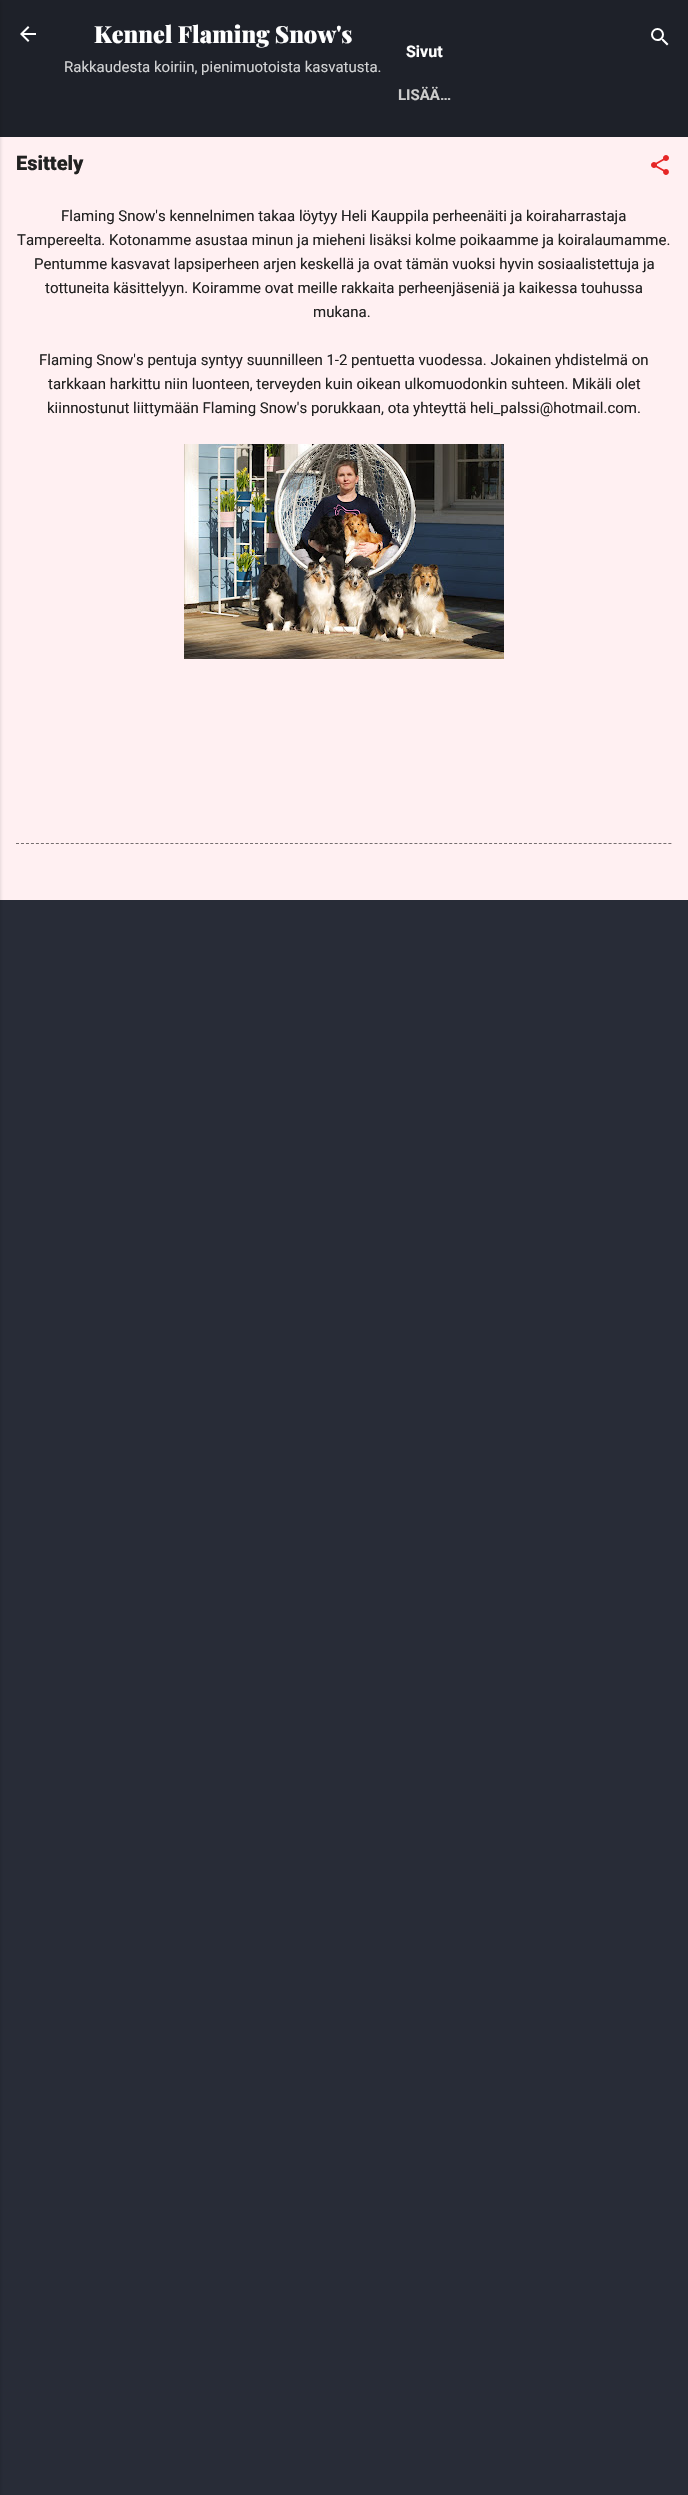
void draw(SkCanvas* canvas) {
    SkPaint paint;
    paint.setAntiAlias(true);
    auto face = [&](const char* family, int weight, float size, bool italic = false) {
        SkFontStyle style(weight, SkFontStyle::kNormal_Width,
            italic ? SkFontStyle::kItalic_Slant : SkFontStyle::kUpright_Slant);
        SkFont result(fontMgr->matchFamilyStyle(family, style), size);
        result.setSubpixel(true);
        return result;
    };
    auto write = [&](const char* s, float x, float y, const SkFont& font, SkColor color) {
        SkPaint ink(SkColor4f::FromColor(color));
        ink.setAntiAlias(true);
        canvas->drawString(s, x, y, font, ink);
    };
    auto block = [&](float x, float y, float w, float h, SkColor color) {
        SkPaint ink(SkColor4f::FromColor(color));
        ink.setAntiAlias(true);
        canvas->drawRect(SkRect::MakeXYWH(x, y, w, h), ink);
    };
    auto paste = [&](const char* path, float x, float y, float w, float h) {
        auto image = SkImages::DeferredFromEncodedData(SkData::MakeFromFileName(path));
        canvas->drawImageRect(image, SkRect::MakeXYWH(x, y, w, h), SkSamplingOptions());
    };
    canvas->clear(SkColorSetRGB(40, 44, 55));
    block(0, 0, 688, 137, SkColorSetRGB(30, 33, 41));
    block(0, 137, 688, 763, SkColorSetRGB(255, 240, 242));
    paint.setColor(SkColorSetARGB(26, 0, 0, 0));
    paint.setMaskFilter(SkMaskFilter::MakeBlur(kNormal_SkBlurStyle, 1.5f));
    canvas->drawRect(SkRect::MakeXYWH(-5, 1, 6, 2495), paint);
    paint.setMaskFilter(nullptr);
    paste("pic1.png", 20, 26, 16, 16);
    auto kFont1 = face("Playfair Display", 900, 23.5f);
    write("Kennel Flaming Snow's", 94, 43, kFont1, SK_ColorWHITE);
    auto kFont2 = face("Roboto", 400, 15);
    write("Rakkaudesta koiriin, pienimuotoista kasvatusta.", 64, 72, kFont2, SkColorSetRGB(210, 211, 212));
    auto kFont3 = face("Roboto", 700, 16);
    write("Sivut", 406, 57, kFont3, SK_ColorWHITE);
    auto kFont4 = face("Roboto", 700, 15);
    write("LISÄÄ…", 398, 100, kFont4, SkColorSetRGB(204, 204, 204));
    paste("pic2.png", 651, 28, 18, 18);
    auto kFont5 = face("Roboto", 900, 20);
    write("Esittely", 16, 170, kFont5, SkColorSetRGB(33, 33, 33));
    paste("pic3.png", 651, 155, 18, 20);
    write("Flaming Snow's kennelnimen takaa löytyy Heli Kauppila perheenäiti ja koiraharrastaja", 61, 221, kFont2, SkColorSetRGB(33, 33, 33));
    write("Tampereelta. Kotonamme asustaa minun ja mieheni lisäksi kolme poikaamme ja koiralaumamme.", 17, 245, kFont2, SkColorSetRGB(33, 33, 33));
    write("Pentumme kasvavat lapsiperheen arjen keskellä ja ovat tämän vuoksi hyvin sosiaalistettuja ja", 34, 269, kFont2, SkColorSetRGB(33, 33, 33));
    write("tottuneita käsittelyyn. Koiramme ovat meille rakkaita perheenjäseniä ja kaikessa touhussa", 45, 293, kFont2, SkColorSetRGB(33, 33, 33));
    write("mukana.", 313, 317, kFont2, SkColorSetRGB(33, 33, 33));
    write("Flaming Snow's pentuja syntyy suunnilleen 1-2 pentuetta vuodessa. Jokainen yhdistelmä on", 39, 365, kFont2, SkColorSetRGB(33, 33, 33));
    write("tarkkaan harkittu niin luonteen, terveyden kuin oikean ulkomuodonkin suhteen. Mikäli olet", 48, 389, kFont2, SkColorSetRGB(33, 33, 33));
    write("kiinnostunut liittymään Flaming Snow's porukkaan, ota yhteyttä heli_palssi@hotmail.com.", 47, 413, kFont2, SkColorSetRGB(33, 33, 33));
    paste("pic4.png", 184, 444, 320, 215);
    paint.setStyle(SkPaint::kStroke_Style);
    paint.setStrokeWidth(1);
    paint.setColor(SkColorSetRGB(117, 110, 111));
    paint.setPathEffect(SkDashPathEffect::Make({{3, 1.98f}}, 0));
    canvas->drawPath(SkPathBuilder().moveTo(16, 843.5f).lineTo(672, 843.5f).detach(), paint);
    paint.setPathEffect(nullptr);
}
